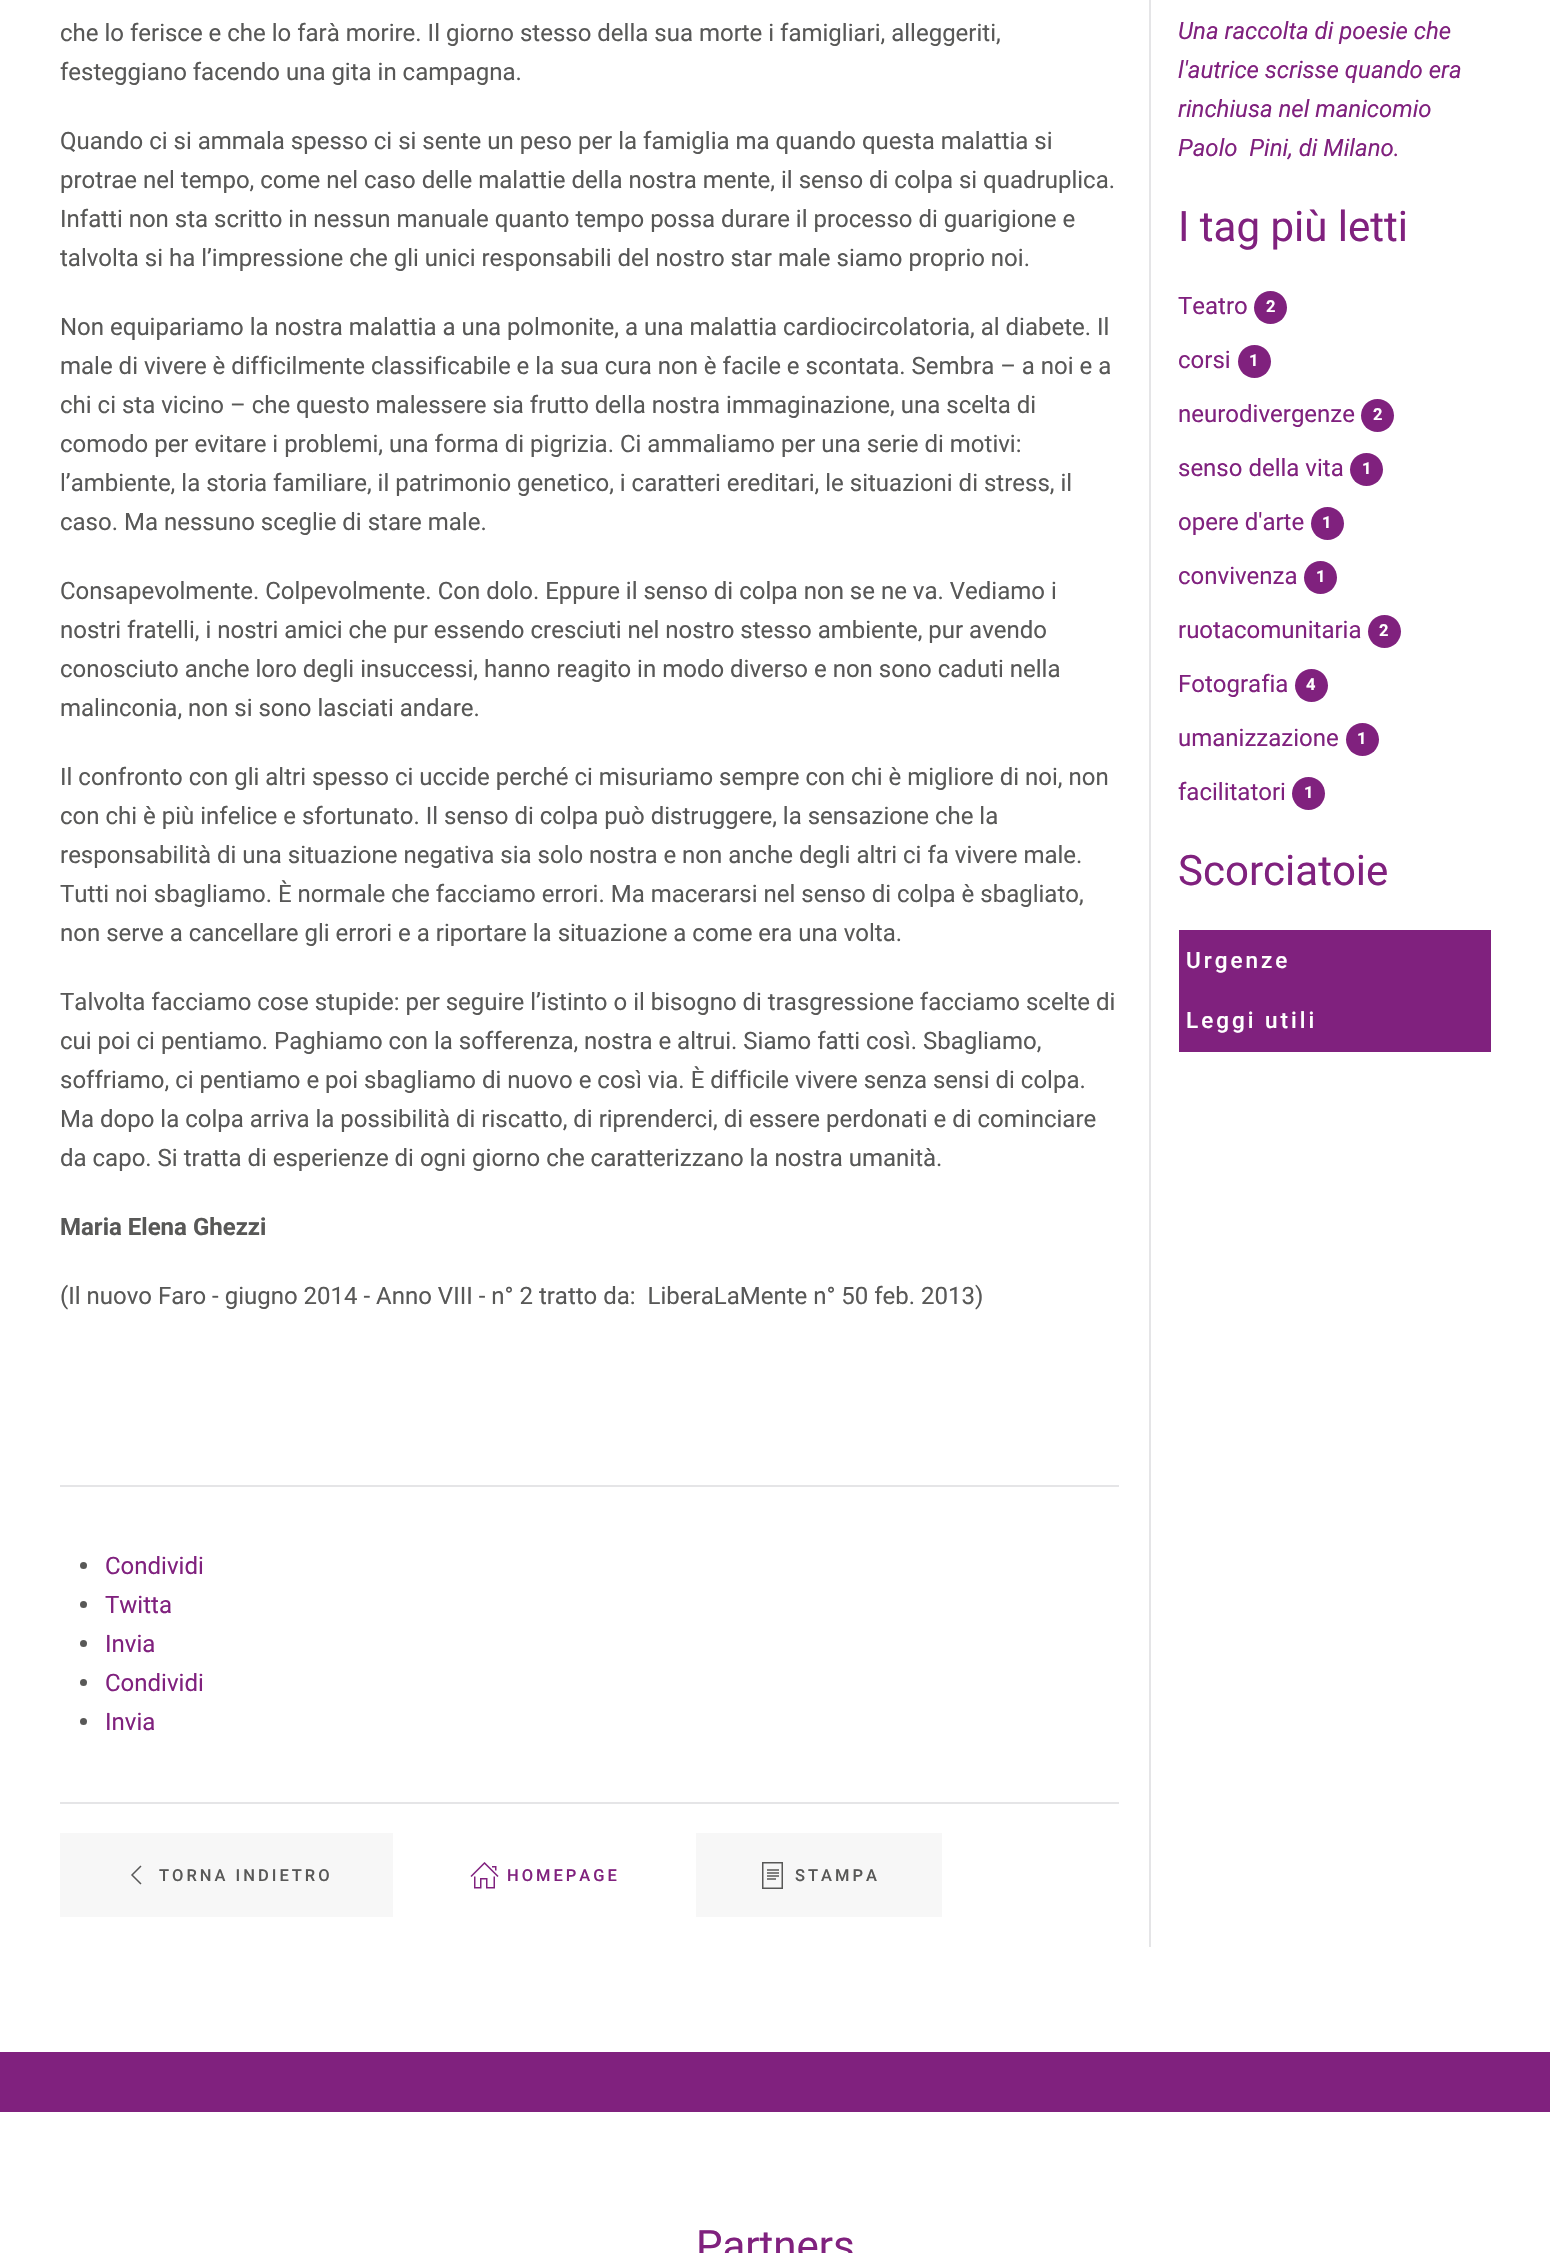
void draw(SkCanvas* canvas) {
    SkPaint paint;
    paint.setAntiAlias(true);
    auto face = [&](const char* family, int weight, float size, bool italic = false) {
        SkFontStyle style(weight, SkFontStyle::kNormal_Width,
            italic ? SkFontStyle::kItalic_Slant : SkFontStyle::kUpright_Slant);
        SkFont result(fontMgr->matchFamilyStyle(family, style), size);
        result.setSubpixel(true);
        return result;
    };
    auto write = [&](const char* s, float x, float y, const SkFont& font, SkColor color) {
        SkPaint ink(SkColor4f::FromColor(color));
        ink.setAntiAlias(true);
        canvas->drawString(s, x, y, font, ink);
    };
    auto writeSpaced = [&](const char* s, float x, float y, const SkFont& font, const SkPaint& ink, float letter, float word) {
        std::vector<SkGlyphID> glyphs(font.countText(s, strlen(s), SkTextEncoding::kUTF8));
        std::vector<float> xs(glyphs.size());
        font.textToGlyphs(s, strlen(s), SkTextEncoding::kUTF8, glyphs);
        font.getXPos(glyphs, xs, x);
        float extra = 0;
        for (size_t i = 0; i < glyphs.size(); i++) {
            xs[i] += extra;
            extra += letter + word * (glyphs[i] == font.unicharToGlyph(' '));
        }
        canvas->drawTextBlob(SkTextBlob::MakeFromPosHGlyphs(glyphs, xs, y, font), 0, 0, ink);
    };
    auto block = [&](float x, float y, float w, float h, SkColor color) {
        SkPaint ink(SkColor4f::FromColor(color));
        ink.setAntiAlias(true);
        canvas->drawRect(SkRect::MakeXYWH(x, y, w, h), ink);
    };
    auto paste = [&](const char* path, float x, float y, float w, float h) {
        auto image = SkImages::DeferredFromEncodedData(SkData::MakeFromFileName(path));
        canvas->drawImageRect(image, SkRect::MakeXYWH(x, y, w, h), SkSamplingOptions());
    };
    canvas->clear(SK_ColorWHITE);
    auto kFont1 = face("Roboto", 400, 24);
    write("che lo ferisce e che lo farà morire. Il giorno stesso della sua morte i famigliari, alleggeriti,", 60, 41, kFont1, SkColorSetRGB(88, 88, 87));
    write("festeggiano facendo una gita in campagna.", 60, 80, kFont1, SkColorSetRGB(88, 88, 87));
    write("Quando ci si ammala spesso ci si sente un peso per la famiglia ma quando questa malattia si", 60, 149, kFont1, SkColorSetRGB(88, 88, 87));
    write("protrae nel tempo, come nel caso delle malattie della nostra mente, il senso di colpa si quadruplica.", 60, 188, kFont1, SkColorSetRGB(88, 88, 87));
    write("Infatti non sta scritto in nessun manuale quanto tempo possa durare il processo di guarigione e", 60, 227, kFont1, SkColorSetRGB(88, 88, 87));
    write("talvolta si ha l’impressione che gli unici responsabili del nostro star male siamo proprio noi.", 60, 266, kFont1, SkColorSetRGB(88, 88, 87));
    write("Non equipariamo la nostra malattia a una polmonite, a una malattia cardiocircolatoria, al diabete. Il", 60, 335, kFont1, SkColorSetRGB(88, 88, 87));
    write("male di vivere è difficilmente classificabile e la sua cura non è facile e scontata. Sembra – a noi e a", 60, 374, kFont1, SkColorSetRGB(88, 88, 87));
    write("chi ci sta vicino – che questo malessere sia frutto della nostra immaginazione, una scelta di", 60, 413, kFont1, SkColorSetRGB(88, 88, 87));
    write("comodo per evitare i problemi, una forma di pigrizia. Ci ammaliamo per una serie di motivi:", 60, 452, kFont1, SkColorSetRGB(88, 88, 87));
    write("l’ambiente, la storia familiare, il patrimonio genetico, i caratteri ereditari, le situazioni di stress, il", 60, 491, kFont1, SkColorSetRGB(88, 88, 87));
    write("caso. Ma nessuno sceglie di stare male.", 60, 530, kFont1, SkColorSetRGB(88, 88, 87));
    write("Consapevolmente. Colpevolmente. Con dolo. Eppure il senso di colpa non se ne va. Vediamo i", 60, 599, kFont1, SkColorSetRGB(88, 88, 87));
    write("nostri fratelli, i nostri amici che pur essendo cresciuti nel nostro stesso ambiente, pur avendo", 60, 638, kFont1, SkColorSetRGB(88, 88, 87));
    write("conosciuto anche loro degli insuccessi, hanno reagito in modo diverso e non sono caduti nella", 60, 677, kFont1, SkColorSetRGB(88, 88, 87));
    write("malinconia, non si sono lasciati andare.", 60, 716, kFont1, SkColorSetRGB(88, 88, 87));
    write("Il confronto con gli altri spesso ci uccide perché ci misuriamo sempre con chi è migliore di noi, non", 60, 785, kFont1, SkColorSetRGB(88, 88, 87));
    write("con chi è più infelice e sfortunato. Il senso di colpa può distruggere, la sensazione che la", 60, 824, kFont1, SkColorSetRGB(88, 88, 87));
    write("responsabilità di una situazione negativa sia solo nostra e non anche degli altri ci fa vivere male.", 60, 863, kFont1, SkColorSetRGB(88, 88, 87));
    write("Tutti noi sbagliamo. È normale che facciamo errori. Ma macerarsi nel senso di colpa è sbagliato,", 60, 902, kFont1, SkColorSetRGB(88, 88, 87));
    write("non serve a cancellare gli errori e a riportare la situazione a come era una volta.", 60, 941, kFont1, SkColorSetRGB(88, 88, 87));
    write("Talvolta facciamo cose stupide: per seguire l’istinto o il bisogno di trasgressione facciamo scelte di", 60, 1010, kFont1, SkColorSetRGB(88, 88, 87));
    write("cui poi ci pentiamo. Paghiamo con la sofferenza, nostra e altrui. Siamo fatti così. Sbagliamo,", 60, 1049, kFont1, SkColorSetRGB(88, 88, 87));
    write("soffriamo, ci pentiamo e poi sbagliamo di nuovo e così via. È difficile vivere senza sensi di colpa.", 60, 1088, kFont1, SkColorSetRGB(88, 88, 87));
    write("Ma dopo la colpa arriva la possibilità di riscatto, di riprenderci, di essere perdonati e di cominciare", 60, 1127, kFont1, SkColorSetRGB(88, 88, 87));
    write("da capo. Si tratta di esperienze di ogni giorno che caratterizzano la nostra umanità.", 60, 1166, kFont1, SkColorSetRGB(88, 88, 87));
    auto kFont2 = face("Roboto", 700, 24);
    write("Maria Elena Ghezzi", 60, 1235, kFont2, SkColorSetRGB(88, 88, 87));
    write("(Il nuovo Faro - giugno 2014 - Anno VIII - n° 2 tratto da:  LiberaLaMente n° 50 feb. 2013)", 60, 1304, kFont1, SkColorSetRGB(88, 88, 87));
    block(60, 1485, 1059, 2, SkColorSetRGB(229, 229, 231));
    paint.setColor(SkColorSetRGB(88, 88, 87));
    canvas->drawCircle(83.5f, 1565.5f, 3.5f, paint);
    write("Condividi", 105, 1574, kFont1, SkColorSetRGB(128, 33, 126));
    canvas->drawCircle(83.5f, 1604.5f, 3.5f, paint);
    write("Twitta", 105, 1613, kFont1, SkColorSetRGB(128, 33, 126));
    canvas->drawCircle(83.5f, 1643.5f, 3.5f, paint);
    write("Invia", 105, 1652, kFont1, SkColorSetRGB(128, 33, 126));
    canvas->drawCircle(83.5f, 1682.5f, 3.5f, paint);
    write("Condividi", 105, 1691, kFont1, SkColorSetRGB(128, 33, 126));
    canvas->drawCircle(83.5f, 1721.5f, 3.5f, paint);
    write("Invia", 105, 1730, kFont1, SkColorSetRGB(128, 33, 126));
    block(60, 1802, 1059, 2, SkColorSetRGB(229, 229, 231));
    block(60, 1833, 333, 84, SkColorSetRGB(247, 247, 247));
    paint.setStyle(SkPaint::kStroke_Style);
    paint.setStrokeWidth(1.5f);
    canvas->drawPath(SkPathBuilder().moveTo(141, 1884).lineTo(132, 1875).lineTo(141, 1866).detach(), paint);
    auto kFont3 = face("Roboto", 500, 16.5f);
    paint.setStyle(SkPaint::kFill_Style);
    writeSpaced("TORNA INDIETRO", 159, 1881, kFont3, paint, 3, 0);
    paste("pic1.png", 470, 1862, 29, 27);
    paint.setColor(SkColorSetRGB(128, 33, 126));
    writeSpaced("HOMEPAGE", 507, 1881, kFont3, paint, 3, 0);
    block(696, 1833, 246, 84, SkColorSetRGB(247, 247, 247));
    paint.setStyle(SkPaint::kStroke_Style);
    paint.setColor(SkColorSetRGB(88, 88, 87));
    canvas->drawRect(SkRect::MakeXYWH(762.75f, 1862.75f, 19.5f, 25.5f), paint);
    block(767, 1869, 12, 2, SkColorSetRGB(128, 128, 127));
    block(767, 1872, 12, 2, SkColorSetRGB(128, 128, 127));
    block(767, 1875, 12, 2, SkColorSetRGB(128, 128, 127));
    block(767, 1878, 9, 2, SkColorSetRGB(128, 128, 127));
    paint.setStyle(SkPaint::kFill_Style);
    writeSpaced("STAMPA", 795, 1881, kFont3, paint, 3, 0);
    block(1149, 0, 2, 1947, SkColorSetRGB(229, 229, 231));
    auto kFont4 = face("Roboto", 400, 24, true);
    write("Una raccolta di poesie che", 1178, 39, kFont4, SkColorSetRGB(128, 33, 126));
    write("l'autrice scrisse quando era", 1178, 78, kFont4, SkColorSetRGB(128, 33, 126));
    write("rinchiusa nel manicomio", 1178, 117, kFont4, SkColorSetRGB(128, 33, 126));
    write("Paolo  Pini, di Milano.", 1178, 156, kFont4, SkColorSetRGB(128, 33, 126));
    auto kFont5 = face("Roboto", 400, 42);
    write("I tag più letti", 1178, 241, kFont5, SkColorSetRGB(128, 33, 126));
    write("Teatro", 1178, 314, kFont1, SkColorSetRGB(128, 33, 126));
    paint.setColor(SkColorSetRGB(128, 33, 126));
    canvas->drawCircle(1270.5f, 307.5f, 16.5f, paint);
    auto kFont6 = face("Roboto", 700, 16.5f);
    write("2", 1266, 312, kFont6, SK_ColorWHITE);
    write("corsi", 1178, 368, kFont1, SkColorSetRGB(128, 33, 126));
    canvas->drawCircle(1254.5f, 361.5f, 16.5f, paint);
    write("1", 1249, 366, kFont6, SK_ColorWHITE);
    write("neurodivergenze", 1178, 422, kFont1, SkColorSetRGB(128, 33, 126));
    canvas->drawCircle(1377.5f, 415.5f, 16.5f, paint);
    write("2", 1373, 420, kFont6, SK_ColorWHITE);
    write("senso della vita", 1178, 476, kFont1, SkColorSetRGB(128, 33, 126));
    canvas->drawCircle(1366.5f, 469.5f, 16.5f, paint);
    write("1", 1362, 474, kFont6, SK_ColorWHITE);
    write("opere d'arte", 1178, 530, kFont1, SkColorSetRGB(128, 33, 126));
    canvas->drawCircle(1327.5f, 523.5f, 16.5f, paint);
    write("1", 1322, 528, kFont6, SK_ColorWHITE);
    write("convivenza", 1178, 584, kFont1, SkColorSetRGB(128, 33, 126));
    canvas->drawCircle(1320.5f, 577.5f, 16.5f, paint);
    write("1", 1316, 582, kFont6, SK_ColorWHITE);
    write("ruotacomunitaria", 1178, 638, kFont1, SkColorSetRGB(128, 33, 126));
    canvas->drawCircle(1384.5f, 631.5f, 16.5f, paint);
    write("2", 1379, 636, kFont6, SK_ColorWHITE);
    write("Fotografia", 1178, 692, kFont1, SkColorSetRGB(128, 33, 126));
    canvas->drawCircle(1311.5f, 685.5f, 16.5f, paint);
    write("4", 1306, 690, kFont6, SK_ColorWHITE);
    write("umanizzazione", 1178, 746, kFont1, SkColorSetRGB(128, 33, 126));
    canvas->drawCircle(1362.5f, 739.5f, 16.5f, paint);
    write("1", 1357, 744, kFont6, SK_ColorWHITE);
    write("facilitatori", 1178, 800, kFont1, SkColorSetRGB(128, 33, 126));
    canvas->drawCircle(1308.5f, 793.5f, 16.5f, paint);
    write("1", 1304, 798, kFont6, SK_ColorWHITE);
    write("Scorciatoie", 1178, 885, kFont5, SkColorSetRGB(128, 33, 126));
    block(1179, 930, 312, 122, SkColorSetRGB(128, 33, 126));
    auto kFont7 = face("Roboto", 500, 22.5f);
    paint.setColor(SK_ColorWHITE);
    writeSpaced("Urgenze", 1186, 968, kFont7, paint, 3, 0);
    writeSpaced("Leggi utili", 1186, 1028, kFont7, paint, 3, 0);
    block(0, 2052, 1550, 60, SkColorSetRGB(128, 33, 126));
    write("Partners", 696, 2260, kFont5, SkColorSetRGB(128, 33, 126));
}
